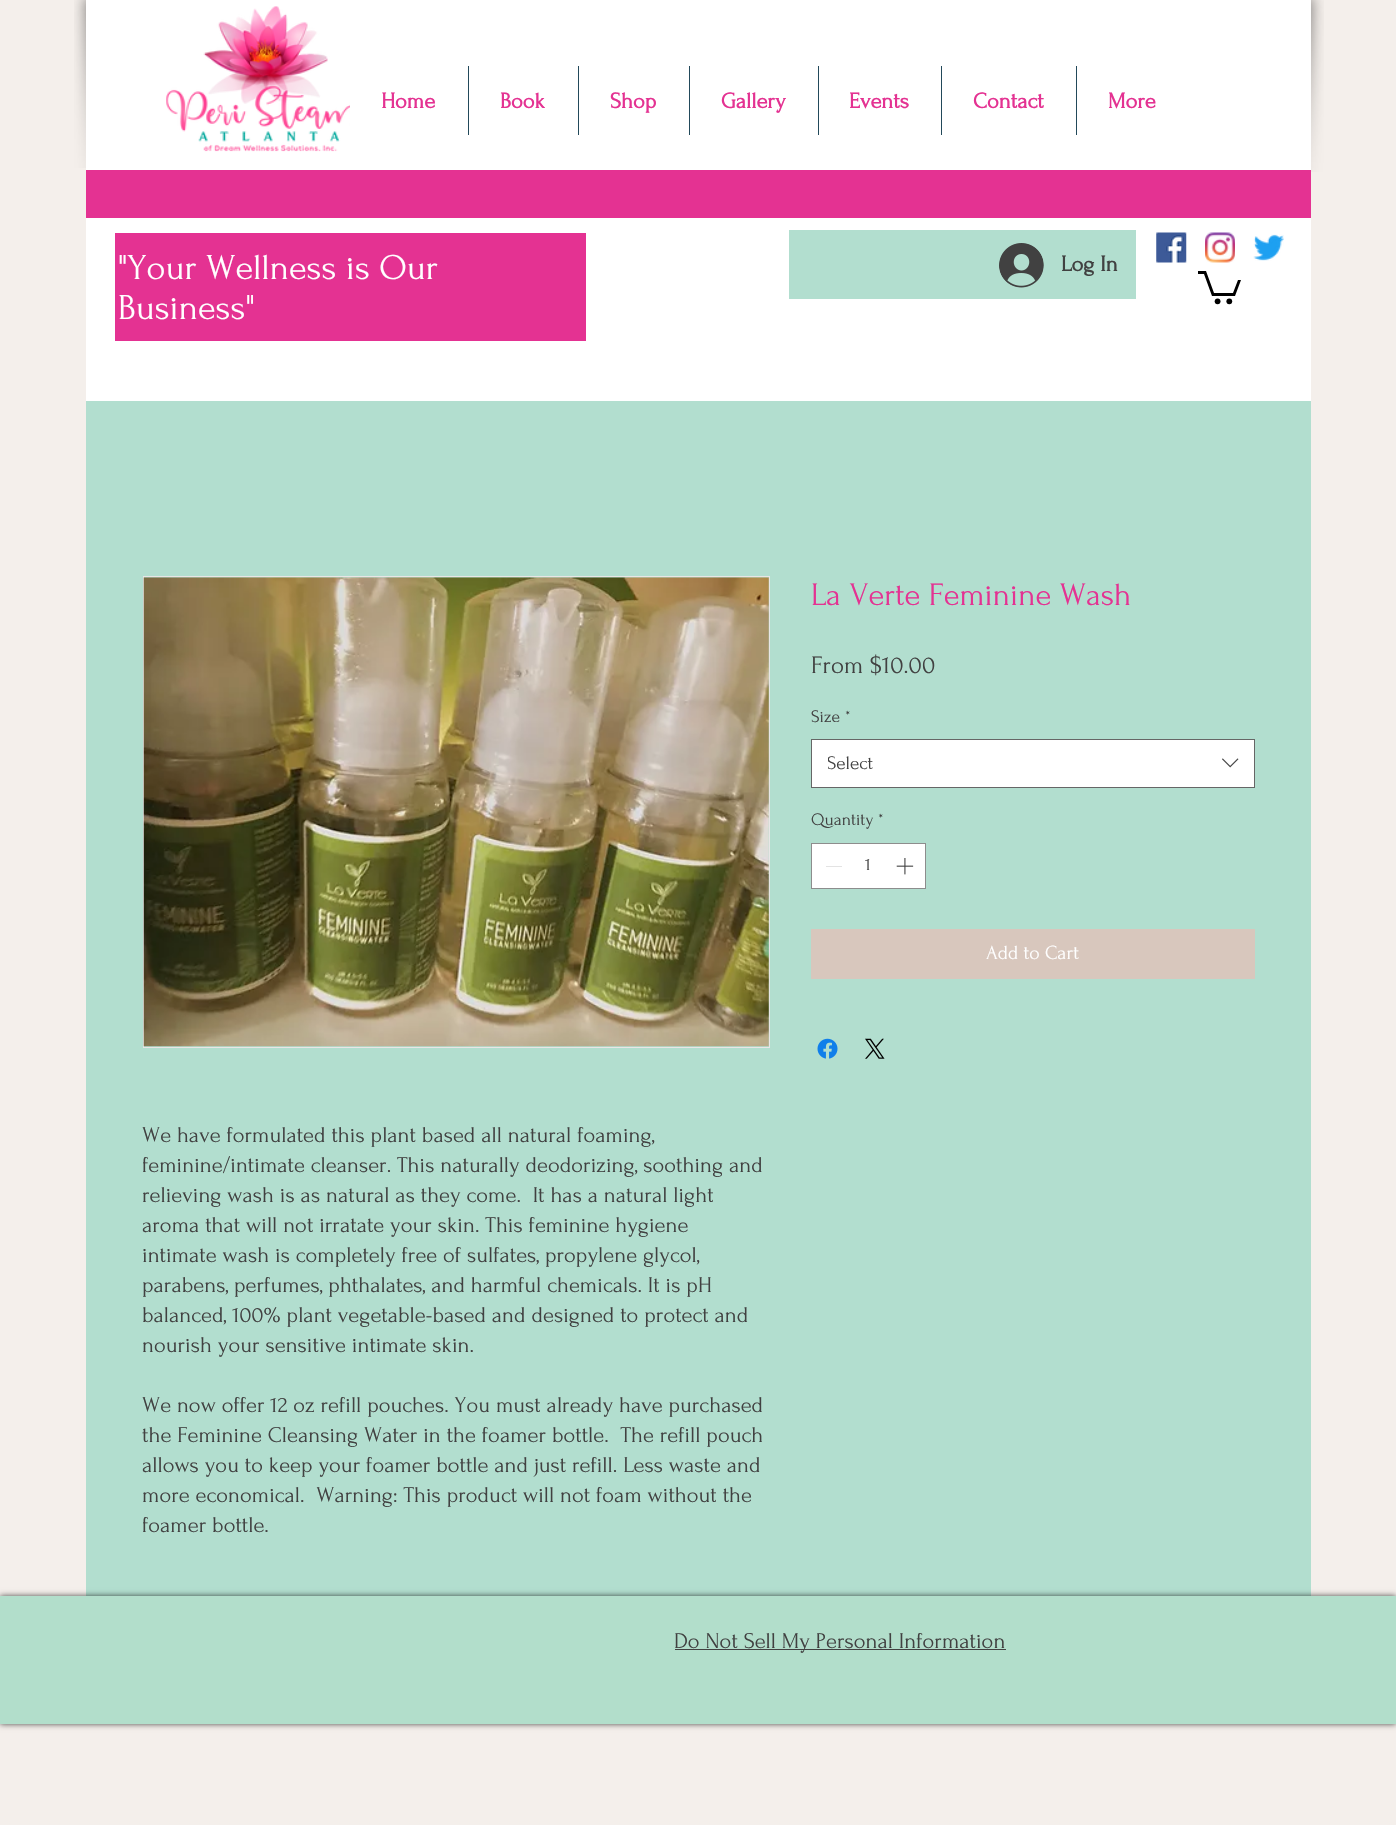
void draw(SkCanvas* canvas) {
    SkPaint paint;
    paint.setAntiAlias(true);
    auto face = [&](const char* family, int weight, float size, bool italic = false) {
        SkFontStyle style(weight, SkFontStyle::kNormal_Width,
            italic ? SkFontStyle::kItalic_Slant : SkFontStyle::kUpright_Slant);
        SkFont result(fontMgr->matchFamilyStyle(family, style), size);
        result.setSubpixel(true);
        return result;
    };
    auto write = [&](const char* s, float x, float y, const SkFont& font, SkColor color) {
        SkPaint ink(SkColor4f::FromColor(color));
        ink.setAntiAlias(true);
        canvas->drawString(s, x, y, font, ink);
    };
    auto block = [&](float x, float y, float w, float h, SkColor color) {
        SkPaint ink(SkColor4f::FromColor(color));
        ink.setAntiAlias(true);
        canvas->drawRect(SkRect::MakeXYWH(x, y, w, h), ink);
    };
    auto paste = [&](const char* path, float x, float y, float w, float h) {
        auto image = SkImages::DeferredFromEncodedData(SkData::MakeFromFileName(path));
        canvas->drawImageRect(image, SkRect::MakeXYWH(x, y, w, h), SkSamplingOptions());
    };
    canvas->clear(SkColorSetRGB(244, 239, 235));
    paste("pic1.png", 74, 0, 12, 168);
    paste("pic2.png", 1311, 0, 13, 172);
    block(86, 170, 1225, 48, SkColorSetRGB(228, 50, 146));
    block(86, 0, 1225, 170, SK_ColorWHITE);
    paste("pic3.png", 166, 6, 184, 146);
    auto kFont1 = face("Forum", 700, 22.5f);
    write("Home", 381, 108, kFont1, SkColorSetRGB(228, 50, 146));
    block(468, 66, 1, 69, SkColorSetRGB(34, 73, 90));
    write("Book", 500, 108, kFont1, SkColorSetRGB(228, 50, 146));
    block(578, 66, 1, 69, SkColorSetRGB(34, 73, 90));
    write("Shop", 610, 108, kFont1, SkColorSetRGB(228, 50, 146));
    block(689, 66, 1, 69, SkColorSetRGB(34, 73, 90));
    write("Gallery", 721, 108, kFont1, SkColorSetRGB(228, 50, 146));
    block(818, 66, 1, 69, SkColorSetRGB(34, 73, 90));
    write("Events", 849, 108, kFont1, SkColorSetRGB(228, 50, 146));
    block(941, 66, 1, 69, SkColorSetRGB(34, 73, 90));
    write("Contact", 973, 108, kFont1, SkColorSetRGB(228, 50, 146));
    block(1076, 66, 1, 69, SkColorSetRGB(34, 73, 90));
    write("More", 1108, 108, kFont1, SkColorSetRGB(228, 50, 146));
    block(86, 218, 1225, 183, SK_ColorWHITE);
    block(115, 233, 471, 108, SkColorSetRGB(228, 50, 146));
    auto kFont2 = face("Forum", 400, 36.25f);
    write("\"Your Wellness is Our", 118, 279, kFont2, SK_ColorWHITE);
    write("Business\"", 118, 319, kFont2, SK_ColorWHITE);
    paste("pic4.png", 1156, 232, 31, 31);
    paste("pic5.png", 1205, 232, 30, 31);
    paste("pic6.png", 1253, 234, 31, 27);
    block(789, 230, 347, 69, SkColorSetRGB(178, 222, 207));
    paste("pic7.png", 999, 243, 45, 45);
    write("Log In", 1061, 271, kFont1, SkColorSetRGB(65, 65, 65));
    paint.setColor(SK_ColorBLACK);
    canvas->drawPath(SkPathBuilder().moveTo(1241, 280).lineTo(1235, 296).lineTo(1212, 296).lineTo(1204, 274).lineTo(1198, 274).lineTo(1198, 271).lineTo(1206, 271).lineTo(1214, 293).lineTo(1233, 293).lineTo(1238, 280).detach(), paint);
    canvas->drawCircle(1229.3f, 301.3f, 2.9f, paint);
    canvas->drawCircle(1217.6f, 301.3f, 2.9f, paint);
    block(86, 401, 1225, 1195, SkColorSetRGB(178, 222, 207));
    auto kFont3 = face("Forum", 400, 32.5f);
    write("La Verte Feminine Wash", 811, 605, kFont3, SkColorSetRGB(228, 50, 146));
    auto kFont4 = face("Forum", 400, 25);
    write("From $10.00", 811, 673, kFont4, SkColorSetRGB(65, 65, 65));
    auto kFont5 = face("Forum", 400, 17.5f);
    write("Size", 811, 722, kFont5, SkColorSetRGB(65, 65, 65));
    write("*", 845, 722, kFont5, SkColorSetRGB(65, 65, 65));
    paint.setColor(SK_ColorWHITE);
    canvas->drawRect(SkRect::MakeXYWH(811.5f, 739.5f, 443, 48), paint);
    paint.setStyle(SkPaint::kStroke_Style);
    paint.setStrokeWidth(1);
    paint.setColor(SkColorSetRGB(102, 102, 102));
    canvas->drawRect(SkRect::MakeXYWH(811.5f, 739.5f, 443, 48), paint);
    canvas->save();
    canvas->clipRect(SkRect::MakeXYWH(828, 750, 383, 26));
    auto kFont6 = face("Forum", 400, 19);
    write("Select", 827, 769, kFont6, SkColorSetRGB(65, 65, 65));
    canvas->restore();
    paste("pic8.png", 1222, 758, 17, 10);
    write("Quantity", 811, 825, kFont5, SkColorSetRGB(65, 65, 65));
    write("*", 878, 825, kFont5, SkColorSetRGB(65, 65, 65));
    paint.setStyle(SkPaint::kFill_Style);
    paint.setColor(SK_ColorWHITE);
    canvas->drawRect(SkRect::MakeXYWH(811.5f, 843.5f, 114, 45), paint);
    paint.setStyle(SkPaint::kStroke_Style);
    paint.setColor(SkColorSetRGB(141, 141, 141));
    canvas->drawRect(SkRect::MakeXYWH(811.5f, 843.5f, 114, 45), paint);
    block(826, 866, 16, 1, SkColorSetRGB(227, 227, 227));
    write("1", 865, 870, kFont5, SkColorSetRGB(65, 65, 65));
    paste("pic9.png", 896, 858, 18, 17);
    block(811, 929, 444, 50, SkColorSetRGB(216, 199, 189));
    auto kFont7 = face("Forum", 400, 20);
    write("Add to Cart", 986, 959, kFont7, SK_ColorWHITE);
    paste("pic10.png", 817, 1038, 21, 21);
    paste("pic11.png", 865, 1038, 20, 21);
    paint.setColor(SkColorSetRGB(232, 230, 230));
    canvas->drawRect(SkRect::MakeXYWH(143.5f, 576.5f, 626, 471), paint);
    paste("pic12.png", 143, 577, 626, 470);
    auto kFont8 = face("Forum", 400, 22.5f);
    write("We have formulated this plant based all natural foaming,", 142, 1142, kFont8, SkColorSetRGB(65, 65, 65));
    canvas->save();
    canvas->clipRect(SkRect::MakeXYWH(143, 1120, 625, 420));
    write("feminine/intimate cleanser. This naturally deodorizing, soothing and", 142, 1172, kFont8, SkColorSetRGB(65, 65, 65));
    canvas->restore();
    write("relieving wash is as natural as they come.  It has a natural light", 142, 1202, kFont8, SkColorSetRGB(65, 65, 65));
    write("aroma that will not irratate your skin. This feminine hygiene", 142, 1232, kFont8, SkColorSetRGB(65, 65, 65));
    write("intimate wash is completely free of sulfates, propylene glycol,", 142, 1262, kFont8, SkColorSetRGB(65, 65, 65));
    write("parabens, perfumes, phthalates, and harmful chemicals. It is pH", 142, 1292, kFont8, SkColorSetRGB(65, 65, 65));
    write("balanced, 100% plant vegetable-based and designed to protect and", 142, 1322, kFont8, SkColorSetRGB(65, 65, 65));
    write("nourish your sensitive intimate skin.", 142, 1352, kFont8, SkColorSetRGB(65, 65, 65));
    write("We now offer 12 oz refill pouches. You must already have purchased", 142, 1412, kFont8, SkColorSetRGB(65, 65, 65));
    write("the Feminine Cleansing Water in the foamer bottle.  The refill pouch", 142, 1442, kFont8, SkColorSetRGB(65, 65, 65));
    write("allows you to keep your foamer bottle and just refill. Less waste and", 142, 1472, kFont8, SkColorSetRGB(65, 65, 65));
    write("more economical.  Warning: This product will not foam without the", 142, 1502, kFont8, SkColorSetRGB(65, 65, 65));
    canvas->save();
    canvas->clipRect(SkRect::MakeXYWH(143, 1120, 625, 420));
    write("foamer bottle.", 142, 1532, kFont8, SkColorSetRGB(65, 65, 65));
    canvas->restore();
    paint.setStyle(SkPaint::kFill_Style);
    paint.setColor(SkColorSetARGB(179, 0, 0, 0));
    paint.setMaskFilter(SkMaskFilter::MakeBlur(kNormal_SkBlurStyle, 3));
    canvas->drawRect(SkRect::MakeXYWH(0, 1596, 1396, 128), paint);
    paint.setMaskFilter(nullptr);
    block(0, 1596, 1396, 128, SkColorSetRGB(178, 222, 203));
    block(675, 1649, 331, 1, SkColorSetRGB(65, 65, 65));
    write("Do Not Sell My Personal Information", 674, 1648, kFont8, SkColorSetRGB(65, 65, 65));
}
